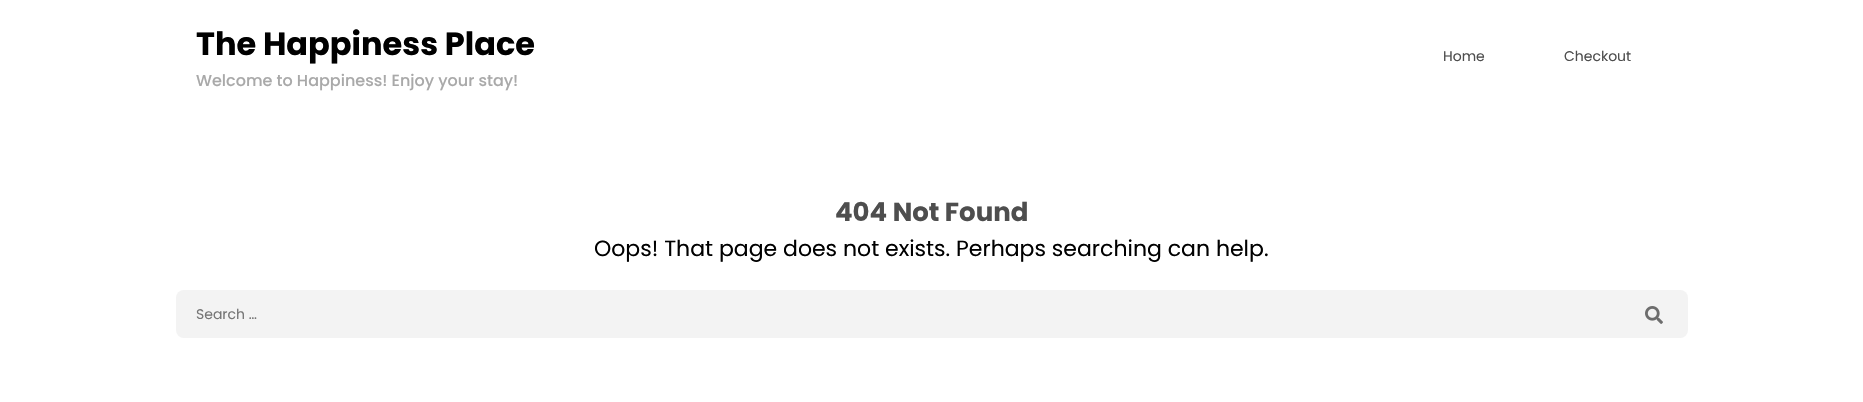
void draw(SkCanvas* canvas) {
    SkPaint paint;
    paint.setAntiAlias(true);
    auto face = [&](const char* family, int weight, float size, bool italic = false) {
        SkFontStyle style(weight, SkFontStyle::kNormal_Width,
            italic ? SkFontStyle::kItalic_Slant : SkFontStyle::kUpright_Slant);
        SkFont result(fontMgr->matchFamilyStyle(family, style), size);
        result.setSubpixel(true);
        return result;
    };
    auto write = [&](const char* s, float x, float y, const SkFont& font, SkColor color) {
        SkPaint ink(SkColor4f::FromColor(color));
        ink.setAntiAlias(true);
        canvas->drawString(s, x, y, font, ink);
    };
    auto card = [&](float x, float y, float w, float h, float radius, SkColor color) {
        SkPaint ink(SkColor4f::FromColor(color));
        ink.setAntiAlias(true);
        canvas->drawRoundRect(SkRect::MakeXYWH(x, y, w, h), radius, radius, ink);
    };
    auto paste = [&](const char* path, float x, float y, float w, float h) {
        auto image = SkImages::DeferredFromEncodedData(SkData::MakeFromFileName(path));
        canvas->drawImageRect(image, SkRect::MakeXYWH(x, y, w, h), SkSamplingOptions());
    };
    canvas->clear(SK_ColorWHITE);
    auto kFont1 = face("Poppins", 700, 32);
    write("The Happiness Place", 196, 55, kFont1, SK_ColorBLACK);
    auto kFont2 = face("Poppins", 500, 16);
    write("Welcome to Happiness! Enjoy your stay!", 196, 86, kFont2, SkColorSetRGB(169, 169, 169));
    auto kFont3 = face("Poppins", 400, 14);
    write("Home", 1443, 61, kFont3, SkColorSetRGB(78, 78, 78));
    write("Checkout", 1564, 61, kFont3, SkColorSetRGB(78, 78, 78));
    auto kFont4 = face("Poppins", 700, 26);
    write("404 Not Found", 835, 221, kFont4, SkColorSetRGB(78, 78, 78));
    auto kFont5 = face("Poppins", 400, 22);
    write("Oops! That page does not exists. Perhaps searching can help.", 594, 256, kFont5, SK_ColorBLACK);
    card(176, 290, 1512, 48, 8, SkColorSetRGB(243, 243, 243));
    write("Search …", 196, 319, kFont3, SkColorSetRGB(117, 117, 117));
    paste("pic1.png", 1645, 306, 18, 18);
}
